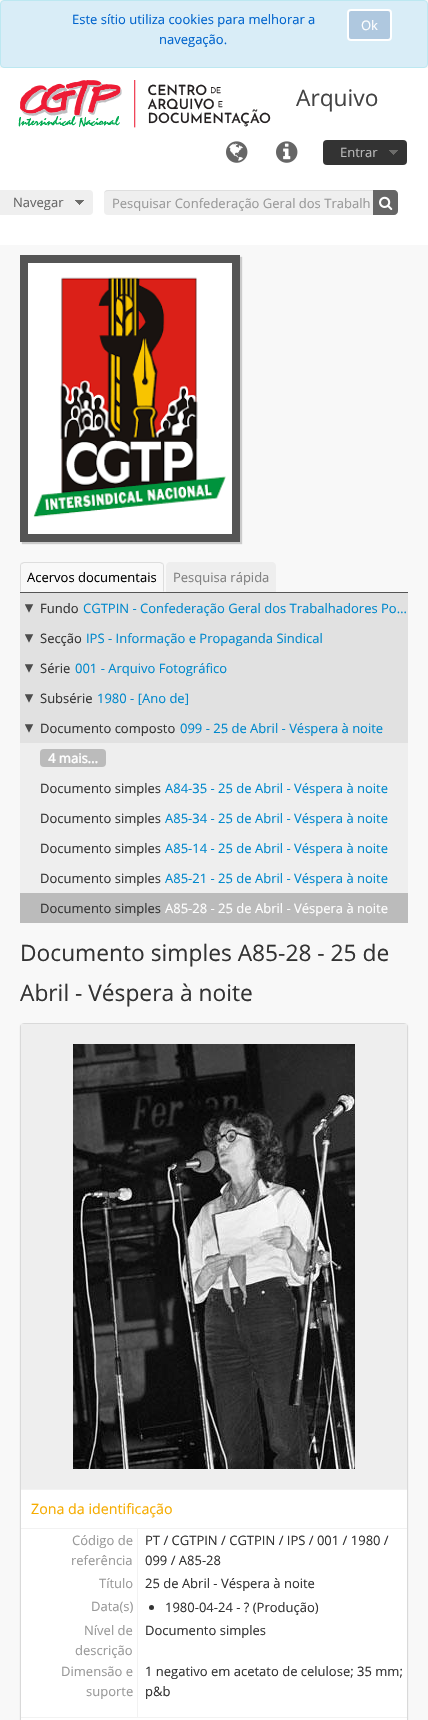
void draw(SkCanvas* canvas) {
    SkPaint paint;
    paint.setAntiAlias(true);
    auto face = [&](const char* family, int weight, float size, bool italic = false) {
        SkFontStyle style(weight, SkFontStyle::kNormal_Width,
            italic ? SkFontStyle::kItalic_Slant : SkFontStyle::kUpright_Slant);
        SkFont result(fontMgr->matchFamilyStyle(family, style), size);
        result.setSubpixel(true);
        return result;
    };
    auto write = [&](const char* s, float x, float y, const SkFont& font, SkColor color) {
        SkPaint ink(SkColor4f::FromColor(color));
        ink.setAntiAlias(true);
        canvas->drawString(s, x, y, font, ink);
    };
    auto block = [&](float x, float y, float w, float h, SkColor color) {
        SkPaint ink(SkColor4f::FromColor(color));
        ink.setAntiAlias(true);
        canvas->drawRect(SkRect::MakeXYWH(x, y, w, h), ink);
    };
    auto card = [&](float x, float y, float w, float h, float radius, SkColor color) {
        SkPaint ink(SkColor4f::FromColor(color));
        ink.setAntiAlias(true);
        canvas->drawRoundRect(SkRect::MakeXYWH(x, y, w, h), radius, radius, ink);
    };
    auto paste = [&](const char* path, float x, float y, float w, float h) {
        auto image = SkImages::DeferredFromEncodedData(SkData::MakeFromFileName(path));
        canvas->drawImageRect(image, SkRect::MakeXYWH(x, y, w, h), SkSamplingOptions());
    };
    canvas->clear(SkColorSetRGB(248, 248, 248));
    paint.setColor(SkColorSetRGB(217, 237, 247));
    canvas->drawRoundRect(SkRect::MakeXYWH(0.5f, 0.5f, 427, 67), 3.5f, 3.5f, paint);
    paint.setStyle(SkPaint::kStroke_Style);
    paint.setStrokeWidth(1);
    paint.setColor(SkColorSetRGB(188, 232, 241));
    canvas->drawRoundRect(SkRect::MakeXYWH(0.5f, 0.5f, 427, 67), 3.5f, 3.5f, paint);
    auto kFont1 = face("Open Sans", 400, 13);
    write("Este sítio utiliza cookies para melhorar a", 72, 24, kFont1, SkColorSetRGB(0, 100, 205));
    write("navegação.", 159, 44, kFont1, SkColorSetRGB(0, 100, 205));
    paint.setStyle(SkPaint::kFill_Style);
    paint.setColor(SkColorSetRGB(175, 200, 223));
    canvas->drawRoundRect(SkRect::MakeXYWH(348, 10, 43, 30), 3, 3, paint);
    paint.setStyle(SkPaint::kStroke_Style);
    paint.setStrokeWidth(2);
    paint.setColor(SK_ColorWHITE);
    canvas->drawRoundRect(SkRect::MakeXYWH(348, 10, 43, 30), 3, 3, paint);
    write("Ok", 361, 30, kFont1, SK_ColorWHITE);
    block(0, 68, 428, 177, SK_ColorWHITE);
    paste("pic1.png", 18, 80, 253, 48);
    auto kFont2 = face("Open Sans", 400, 22.75f);
    write("Arquivo", 296, 106, kFont2, SkColorSetRGB(68, 68, 68));
    paste("pic2.png", 226, 141, 22, 22);
    paste("pic3.png", 276, 141, 22, 22);
    card(323, 140, 84, 25, 4, SkColorSetRGB(51, 51, 51));
    paste("pic4.png", 389, 150, 9, 5);
    write("Entrar", 340, 157, kFont1, SkColorSetRGB(187, 187, 187));
    card(-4, 190, 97, 25, 4, SkColorSetRGB(239, 239, 239));
    paste("pic5.png", 75, 200, 9, 5);
    write("Navegar", 13, 207, kFont1, SkColorSetRGB(102, 102, 102));
    card(104, 190, 294, 25, 4, SkColorSetRGB(239, 239, 239));
    paint.setStyle(SkPaint::kFill_Style);
    paint.setColor(SkColorSetARGB(18, 0, 0, 0));
    canvas->drawPath(SkPathBuilder().moveTo(108, 191).lineTo(396, 191).cubicTo(397, 191, 398, 192, 398, 194).cubicTo(398, 192, 396, 190, 394, 190).lineTo(108, 190).cubicTo(105, 190, 104, 192, 104, 194).cubicTo(104, 192, 106, 191, 108, 191).close().detach(), paint);
    write("Pesquisar Confederação Geral dos Trabalh", 112, 208, kFont1, SkColorSetRGB(153, 153, 153));
    paint.setColor(SkColorSetRGB(102, 102, 102));
    canvas->drawPath(SkPathBuilder().moveTo(373, 190).lineTo(394, 190).cubicTo(396, 190, 398, 192, 398, 194).lineTo(398, 211).cubicTo(398, 213, 396, 215, 394, 215).lineTo(373, 215).close().detach(), paint);
    paste("pic6.png", 379, 196, 14, 14);
    paint.setColor(SkColorSetARGB(51, 25, 25, 25));
    paint.setMaskFilter(SkMaskFilter::MakeBlur(kNormal_SkBlurStyle, 0.5f));
    canvas->drawRect(SkRect::MakeXYWH(22, 257, 220, 287), paint);
    paint.setMaskFilter(nullptr);
    block(20, 255, 220, 287, SkColorSetRGB(85, 85, 85));
    paste("pic7.png", 28, 263, 204, 271);
    block(20, 592, 388, 1, SkColorSetRGB(85, 85, 85));
    paint.setColor(SkColorSetRGB(221, 221, 221));
    canvas->drawPath(SkPathBuilder().moveTo(24, 562).lineTo(21, 563).lineTo(22, 564).lineTo(24, 563).lineTo(160, 563).lineTo(162, 564).lineTo(163, 563).lineTo(160, 562).close().detach(), paint);
    canvas->drawPath(SkPathBuilder().moveTo(164, 592).lineTo(164, 566).cubicTo(164, 565, 163.5f, 564, 163, 563).lineTo(162, 564).cubicTo(163, 564, 163, 565, 163, 566).lineTo(163, 591).close().detach(), paint);
    canvas->drawPath(SkPathBuilder().moveTo(20, 592).lineTo(21, 591).lineTo(21, 566).cubicTo(21, 565, 21, 564, 22, 564).lineTo(21, 563).cubicTo(20.5f, 564, 20, 565, 20, 566).close().detach(), paint);
    write("Acervos documentais", 27, 582, kFont1, SK_ColorBLACK);
    paint.setColor(SkColorSetRGB(238, 238, 238));
    canvas->drawPath(SkPathBuilder().moveTo(170, 562).lineTo(272, 562).cubicTo(274, 562, 276, 564, 276, 566).lineTo(276, 592).lineTo(166, 592).lineTo(166, 566).cubicTo(166, 564, 168, 562, 170, 562).close().detach(), paint);
    write("Pesquisa rápida", 173, 582, kFont1, SkColorSetRGB(128, 128, 128));
    block(20, 743, 388, 150, SkColorSetRGB(238, 238, 238));
    block(20, 593, 388, 150, SkColorSetRGB(225, 225, 225));
    paste("pic8.png", 25, 604, 9, 9);
    write("Fundo", 40, 613, kFont1, SkColorSetRGB(51, 51, 51));
    write("CGTPIN - Confederação Geral dos Trabalhadores Po…", 83, 613, kFont1, SkColorSetRGB(0, 136, 204));
    paste("pic8.png", 25, 634, 9, 9);
    write("Secção", 40, 643, kFont1, SkColorSetRGB(51, 51, 51));
    write("IPS - Informação e Propaganda Sindical", 86, 643, kFont1, SkColorSetRGB(0, 136, 204));
    paste("pic8.png", 25, 664, 9, 9);
    write("Série", 40, 673, kFont1, SkColorSetRGB(51, 51, 51));
    write("001 - Arquivo Fotográfico", 75, 673, kFont1, SkColorSetRGB(0, 136, 204));
    paste("pic8.png", 25, 694, 9, 9);
    write("Subsérie", 40, 703, kFont1, SkColorSetRGB(51, 51, 51));
    write("1980 - [Ano de]", 97, 703, kFont1, SkColorSetRGB(0, 136, 204));
    paste("pic8.png", 25, 724, 9, 9);
    write("Documento composto", 40, 733, kFont1, SkColorSetRGB(51, 51, 51));
    write("099 - 25 de Abril - Véspera à noite", 180, 733, kFont1, SkColorSetRGB(0, 136, 204));
    card(40, 749, 66, 18, 4, SkColorSetRGB(187, 187, 187));
    auto kFont3 = face("Open Sans", 700, 13);
    write("4 mais...", 48, 763, kFont3, SK_ColorWHITE);
    write("Documento simples", 40, 793, kFont1, SkColorSetRGB(51, 51, 51));
    write("A84-35 - 25 de Abril - Véspera à noite", 165, 793, kFont1, SkColorSetRGB(0, 136, 204));
    write("Documento simples", 40, 823, kFont1, SkColorSetRGB(51, 51, 51));
    write("A85-34 - 25 de Abril - Véspera à noite", 165, 823, kFont1, SkColorSetRGB(0, 136, 204));
    write("Documento simples", 40, 853, kFont1, SkColorSetRGB(51, 51, 51));
    write("A85-14 - 25 de Abril - Véspera à noite", 165, 853, kFont1, SkColorSetRGB(0, 136, 204));
    write("Documento simples", 40, 883, kFont1, SkColorSetRGB(51, 51, 51));
    write("A85-21 - 25 de Abril - Véspera à noite", 165, 883, kFont1, SkColorSetRGB(0, 136, 204));
    block(20, 893, 388, 30, SkColorSetRGB(187, 187, 187));
    write("Documento simples", 40, 913, kFont1, SkColorSetRGB(51, 51, 51));
    write("A85-28 - 25 de Abril - Véspera à noite", 165, 913, kFont1, SK_ColorWHITE);
    write("Documento simples A85-28 - 25 de", 20, 961, kFont2, SkColorSetRGB(51, 51, 51));
    write("Abril - Véspera à noite", 20, 1001, kFont2, SkColorSetRGB(51, 51, 51));
    paint.setColor(SkColorSetARGB(51, 0, 0, 0));
    paint.setMaskFilter(SkMaskFilter::MakeBlur(kNormal_SkBlurStyle, 0.5f));
    canvas->drawRoundRect(SkRect::MakeXYWH(20, 1024, 388, 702), 4, 4, paint);
    paint.setMaskFilter(nullptr);
    paint.setColor(SK_ColorWHITE);
    canvas->drawRoundRect(SkRect::MakeXYWH(20.5f, 1023.5f, 387, 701), 3.5f, 3.5f, paint);
    paint.setStyle(SkPaint::kStroke_Style);
    paint.setStrokeWidth(1);
    paint.setColor(SkColorSetRGB(217, 217, 217));
    canvas->drawRoundRect(SkRect::MakeXYWH(20.5f, 1023.5f, 387, 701), 3.5f, 3.5f, paint);
    block(21, 1024, 386, 465, SkColorSetRGB(238, 238, 238));
    paste("pic9.png", 73, 1044, 282, 425);
    block(21, 1489, 386, 1, SkColorSetRGB(242, 242, 242));
    block(21, 1528, 386, 1, SkColorSetRGB(242, 242, 242));
    auto kFont4 = face("Open Sans", 400, 14.25f);
    write("Zona da identificação", 31, 1514, kFont4, SkColorSetRGB(246, 172, 0));
    block(137, 1529, 1, 188, SkColorSetRGB(242, 242, 242));
    write("Código de", 72, 1545, kFont1, SkColorSetRGB(153, 153, 153));
    write("referência", 71, 1565, kFont1, SkColorSetRGB(153, 153, 153));
    write("PT / CGTPIN / CGTPIN / IPS / 001 / 1980 /", 145, 1545, kFont1, SkColorSetRGB(51, 51, 51));
    write("099 / A85-28", 145, 1565, kFont1, SkColorSetRGB(51, 51, 51));
    write("Título", 99, 1588, kFont1, SkColorSetRGB(153, 153, 153));
    write("25 de Abril - Véspera à noite", 145, 1588, kFont1, SkColorSetRGB(51, 51, 51));
    write("Data(s)", 91, 1611, kFont1, SkColorSetRGB(153, 153, 153));
    paint.setStyle(SkPaint::kFill_Style);
    paint.setColor(SkColorSetRGB(51, 51, 51));
    canvas->drawCircle(151.5f, 1607.5f, 2.5f, paint);
    write("1980-04-24 - ? (Produção)", 165, 1612, kFont1, SkColorSetRGB(51, 51, 51));
    write("Nível de", 84, 1635, kFont1, SkColorSetRGB(153, 153, 153));
    write("descrição", 75, 1655, kFont1, SkColorSetRGB(153, 153, 153));
    write("Documento simples", 145, 1635, kFont1, SkColorSetRGB(51, 51, 51));
    write("Dimensão e", 61, 1676, kFont1, SkColorSetRGB(153, 153, 153));
    write("suporte", 86, 1696, kFont1, SkColorSetRGB(153, 153, 153));
    write("1 negativo em acetato de celulose; 35 mm;", 145, 1676, kFont1, SkColorSetRGB(51, 51, 51));
    write("p&b", 145, 1696, kFont1, SkColorSetRGB(51, 51, 51));
    block(21, 1717, 386, 1, SkColorSetRGB(242, 242, 242));
}
